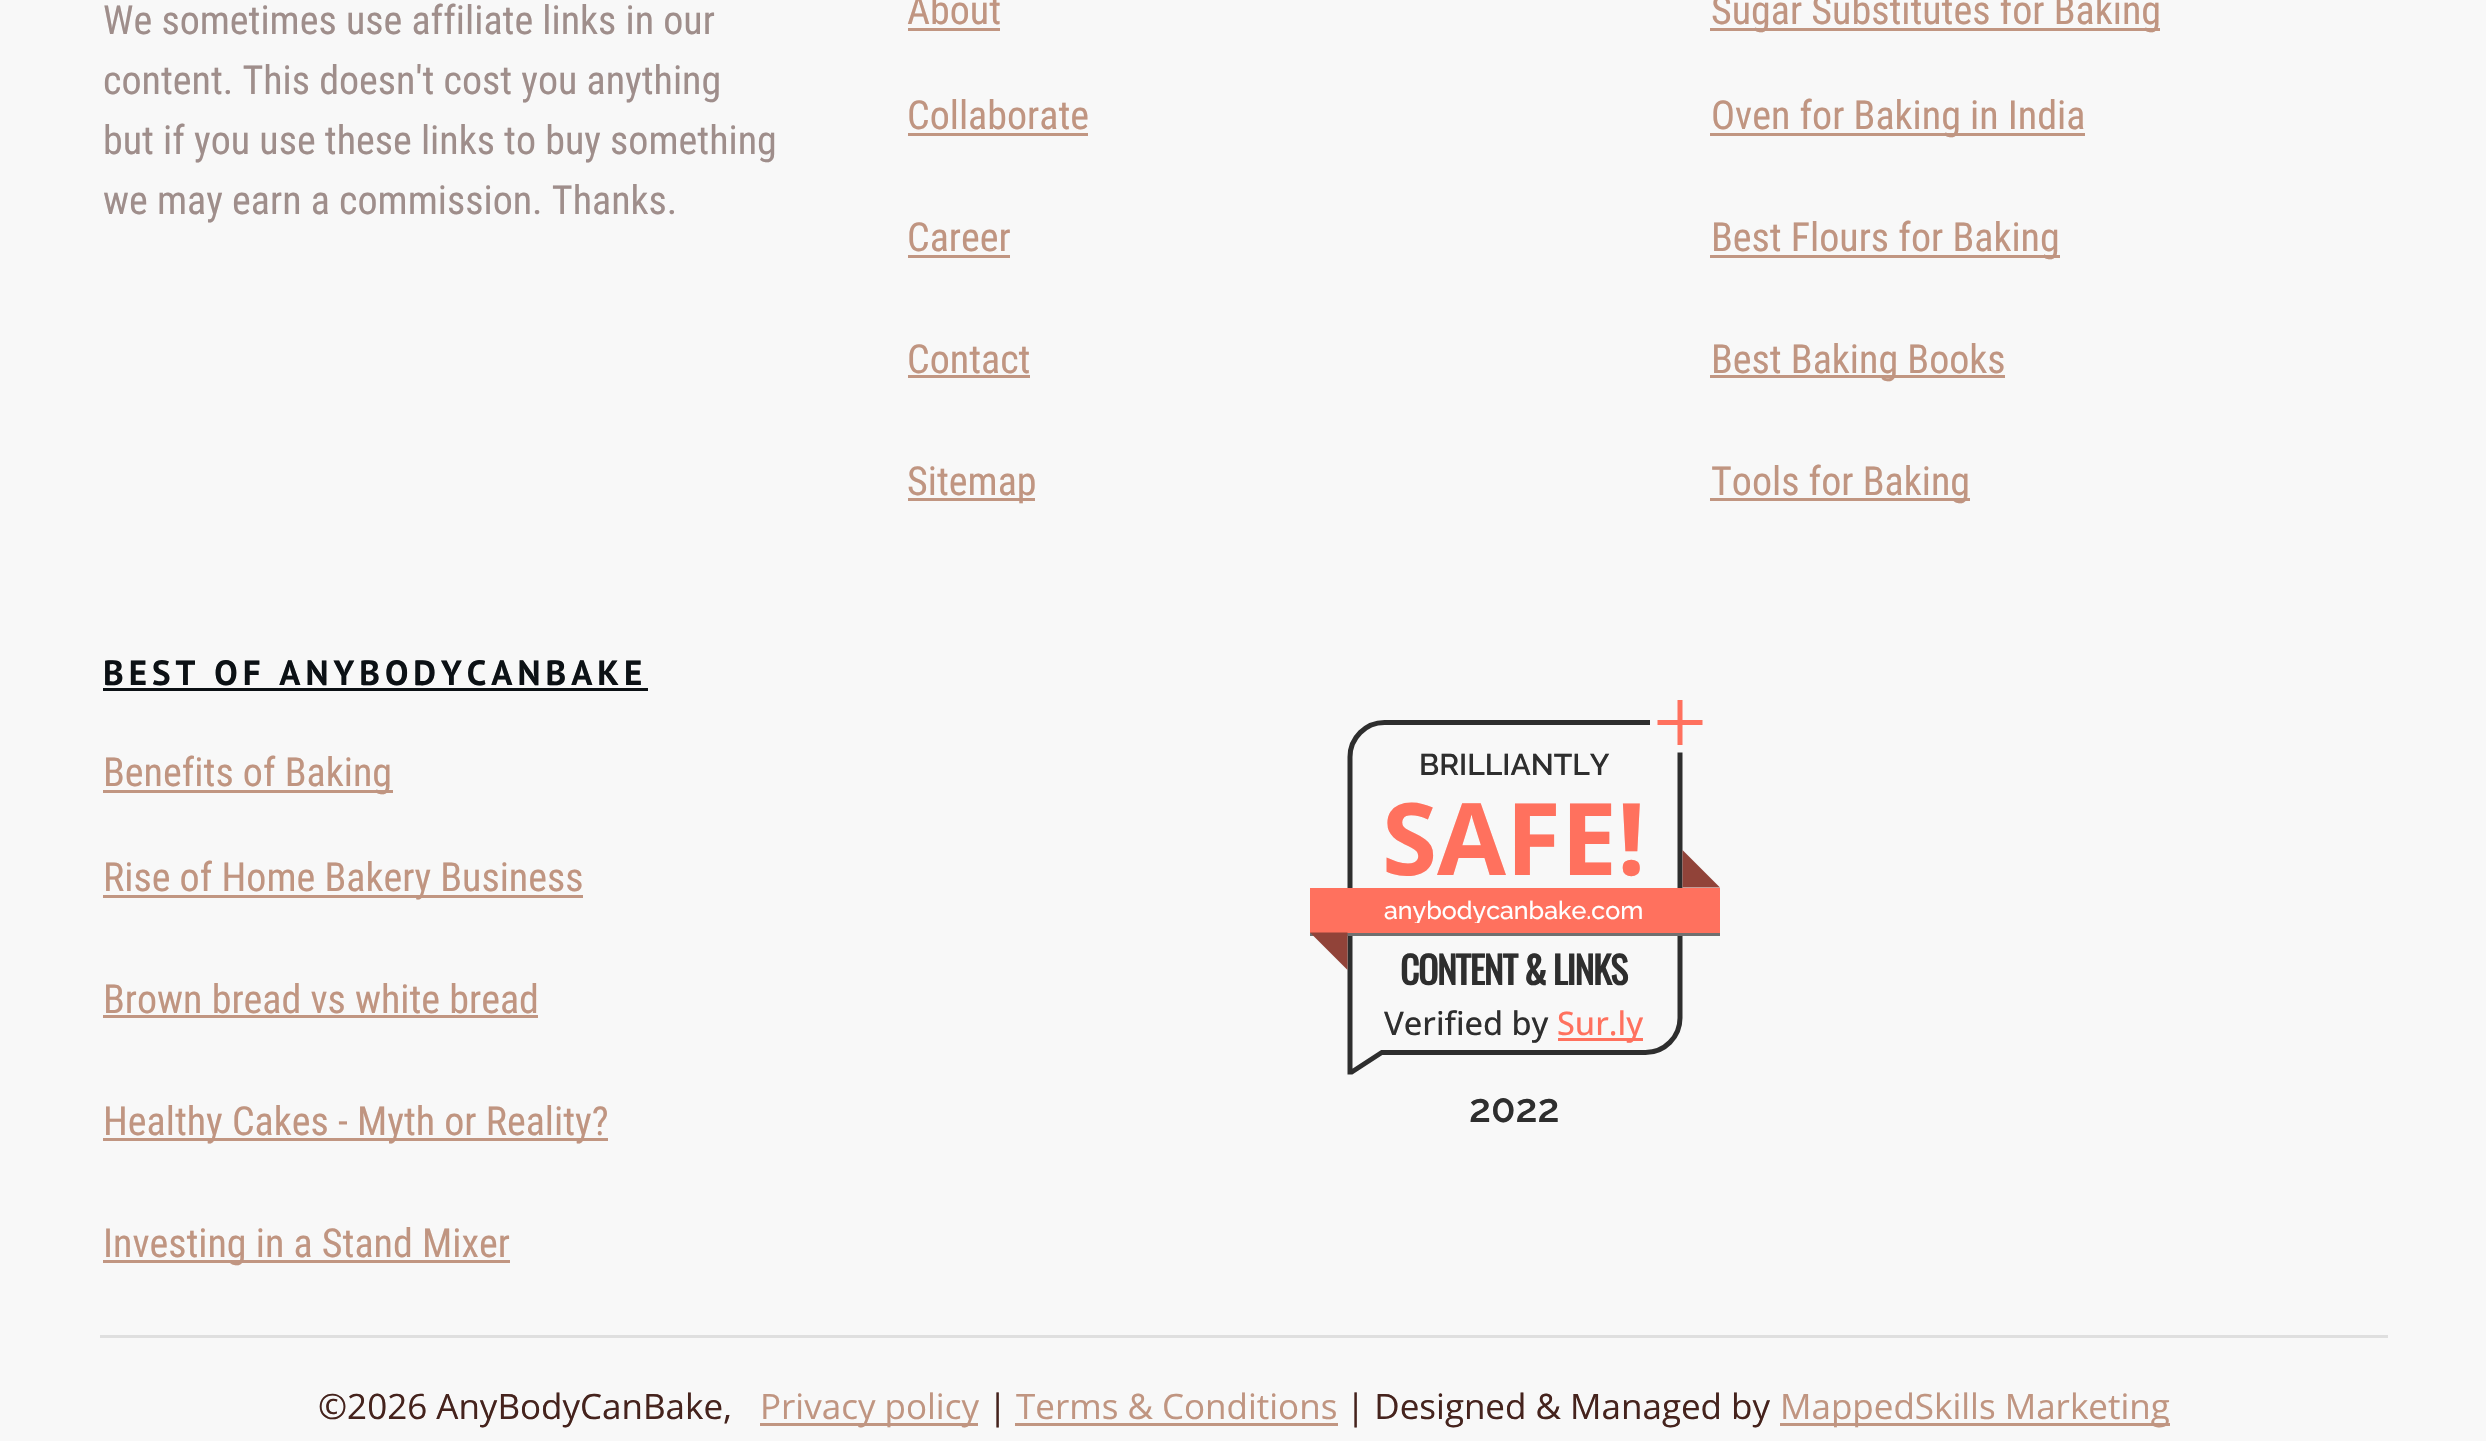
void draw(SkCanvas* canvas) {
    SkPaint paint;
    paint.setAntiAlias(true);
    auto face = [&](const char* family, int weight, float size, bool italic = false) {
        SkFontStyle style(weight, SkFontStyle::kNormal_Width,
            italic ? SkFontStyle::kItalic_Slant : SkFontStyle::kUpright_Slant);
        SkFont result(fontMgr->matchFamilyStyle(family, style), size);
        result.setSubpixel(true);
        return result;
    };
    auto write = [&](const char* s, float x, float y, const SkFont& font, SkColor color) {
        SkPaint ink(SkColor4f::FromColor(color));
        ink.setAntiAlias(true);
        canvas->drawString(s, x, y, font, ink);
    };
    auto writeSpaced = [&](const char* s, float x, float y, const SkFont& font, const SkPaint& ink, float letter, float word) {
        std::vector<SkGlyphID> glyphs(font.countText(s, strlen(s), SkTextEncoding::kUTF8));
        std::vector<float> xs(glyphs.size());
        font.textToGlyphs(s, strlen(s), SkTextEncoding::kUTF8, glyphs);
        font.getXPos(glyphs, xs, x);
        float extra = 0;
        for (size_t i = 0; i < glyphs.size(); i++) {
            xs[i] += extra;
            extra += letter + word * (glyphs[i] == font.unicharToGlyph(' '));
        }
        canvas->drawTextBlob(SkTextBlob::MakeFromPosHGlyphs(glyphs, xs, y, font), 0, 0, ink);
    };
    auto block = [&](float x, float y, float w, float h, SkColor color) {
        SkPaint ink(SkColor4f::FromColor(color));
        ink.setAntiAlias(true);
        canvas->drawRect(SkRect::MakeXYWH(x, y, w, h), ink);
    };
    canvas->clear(SkColorSetRGB(248, 248, 248));
    auto kFont1 = face("Roboto Condensed", 400, 40);
    write("We sometimes use affiliate links in our", 103, 34, kFont1, SkColorSetRGB(159, 142, 139));
    write("content. This doesn't cost you anything", 103, 94, kFont1, SkColorSetRGB(159, 142, 139));
    write("but if you use these links to buy something", 103, 154, kFont1, SkColorSetRGB(159, 142, 139));
    write("we may earn a commission. Thanks.", 103, 214, kFont1, SkColorSetRGB(159, 142, 139));
    write("About", 907, 24, kFont1, SkColorSetRGB(192, 149, 129));
    block(908, 28, 92, 3, SkColorSetRGB(193, 150, 130));
    write("Collaborate", 907, 129, kFont1, SkColorSetRGB(192, 149, 129));
    block(908, 133, 180, 3, SkColorSetRGB(193, 150, 130));
    write("Career", 907, 251, kFont1, SkColorSetRGB(192, 149, 129));
    block(908, 255, 102, 3, SkColorSetRGB(193, 150, 130));
    write("Contact", 907, 373, kFont1, SkColorSetRGB(192, 149, 129));
    block(908, 375, 122, 3, SkColorSetRGB(193, 150, 130));
    block(908, 498, 127, 3, SkColorSetRGB(193, 150, 130));
    write("Sitemap", 907, 495, kFont1, SkColorSetRGB(192, 149, 129));
    block(1710, 28, 450, 3, SkColorSetRGB(193, 150, 130));
    write("Sugar Substitutes for Baking", 1711, 24, kFont1, SkColorSetRGB(192, 149, 129));
    block(1710, 133, 375, 3, SkColorSetRGB(193, 150, 130));
    write("Oven for Baking in India", 1711, 129, kFont1, SkColorSetRGB(192, 149, 129));
    block(1710, 255, 350, 3, SkColorSetRGB(193, 150, 130));
    write("Best Flours for Baking", 1711, 251, kFont1, SkColorSetRGB(192, 149, 129));
    block(1710, 375, 295, 3, SkColorSetRGB(193, 150, 130));
    write("Best Baking Books", 1711, 373, kFont1, SkColorSetRGB(192, 149, 129));
    block(1710, 498, 260, 3, SkColorSetRGB(193, 150, 130));
    write("Tools for Baking", 1711, 495, kFont1, SkColorSetRGB(192, 149, 129));
    auto kFont2 = face("PT Sans", 700, 35);
    paint.setColor(SkColorSetRGB(12, 17, 21));
    writeSpaced("BEST OF ANYBODYCANBAKE", 103, 685, kFont2, paint, 5, 0);
    block(103, 688, 545, 3, SkColorSetRGB(12, 17, 21));
    block(103, 790, 290, 3, SkColorSetRGB(193, 150, 130));
    write("Benefits of Baking", 103, 786, kFont1, SkColorSetRGB(192, 149, 129));
    block(103, 895, 480, 3, SkColorSetRGB(193, 150, 130));
    write("Rise of Home Bakery Business", 103, 891, kFont1, SkColorSetRGB(192, 149, 129));
    write("Brown bread vs white bread", 103, 1013, kFont1, SkColorSetRGB(192, 149, 129));
    block(103, 1015, 435, 3, SkColorSetRGB(193, 150, 130));
    block(103, 1138, 505, 3, SkColorSetRGB(193, 150, 130));
    write("Healthy Cakes - Myth or Reality?", 103, 1135, kFont1, SkColorSetRGB(192, 149, 129));
    block(103, 1260, 407, 3, SkColorSetRGB(193, 150, 130));
    write("Investing in a Stand Mixer", 103, 1257, kFont1, SkColorSetRGB(192, 149, 129));
    paint.setStyle(SkPaint::kStroke_Style);
    paint.setStrokeWidth(5);
    paint.setColor(SkColorSetRGB(46, 46, 46));
    canvas->drawPath(SkPathBuilder().moveTo(1350, 757).cubicTo(1350, 738, 1365.5f, 722.5f, 1384.5f, 722.5f).moveTo(1350, 757).lineTo(1350, 1074.5f).moveTo(1382.5f, 1052).lineTo(1351, 1072.5f).moveTo(1381, 1052.5f).lineTo(1645.5f, 1052.5f).moveTo(1645.5f, 1052.5f).cubicTo(1664.5f, 1052.5f, 1680, 1037, 1680, 1018).moveTo(1680, 752.5f).lineTo(1680, 1018).moveTo(1384.5f, 722.5f).lineTo(1650, 722.5f).detach(), paint);
    paint.setColor(SkColorSetRGB(255, 113, 94));
    canvas->drawPath(SkPathBuilder().moveTo(1680, 745).lineTo(1680, 700).moveTo(1657.5f, 722.5f).lineTo(1702.5f, 722.5f).detach(), paint);
    auto kFont3 = face("Raleway", 600, 30);
    write("BRILLIANTLY", 1419, 775, kFont3, SkColorSetRGB(46, 46, 46));
    auto kFont4 = face("Open Sans", 700, 100);
    write("SAFE!", 1382, 875, kFont4, SkColorSetRGB(255, 113, 94));
    block(1310, 888, 410, 45, SkColorSetRGB(255, 113, 94));
    block(1310, 933, 410, 3, SkColorSetRGB(112, 112, 112));
    paint.setStyle(SkPaint::kFill_Style);
    paint.setColor(SkColorSetRGB(145, 67, 57));
    canvas->drawPath(SkPathBuilder().moveTo(1682.5f, 887.5f).lineTo(1682.5f, 850).lineTo(1720, 887.5f).close().detach(), paint);
    canvas->save();
    canvas->clipRect(SkRect::MakeXYWH(1315, 895, 400, 28));
    auto kFont5 = face("Raleway", 500, 25);
    write("anybodycanbake.com", 1384, 919, kFont5, SK_ColorWHITE);
    canvas->restore();
    canvas->drawPath(SkPathBuilder().moveTo(1347.5f, 932.5f).lineTo(1347.5f, 970).lineTo(1310, 932.5f).close().detach(), paint);
    auto kFont6 = face("Oswald", 700, 37.5f);
    paint.setColor(SkColorSetRGB(46, 46, 46));
    writeSpaced("CONTENT & LINKS", 1400, 985, kFont6, paint, -1.25f, 0);
    auto kFont7 = face("Open Sans", 500, 32.5f);
    write("Verified by", 1384, 1035, kFont7, SkColorSetRGB(46, 46, 46));
    block(1558, 1038, 85, 3, SkColorSetRGB(255, 113, 94));
    write("Sur.ly", 1557, 1035, kFont7, SkColorSetRGB(255, 113, 94));
    auto kFont8 = face("Raleway", 600, 40);
    write("2022", 1469, 1122, kFont8, SkColorSetRGB(46, 46, 46));
    block(100, 1335, 2288, 3, SkColorSetRGB(223, 223, 223));
    auto kFont9 = face("Open Sans", 400, 35);
    write("©2026 AnyBodyCanBake,", 318, 1419, kFont9, SkColorSetRGB(69, 35, 29));
    block(760, 1423, 218, 3, SkColorSetRGB(193, 150, 130));
    write("Privacy policy", 760, 1419, kFont9, SkColorSetRGB(192, 149, 129));
    write("|", 988, 1419, kFont9, SkColorSetRGB(69, 35, 29));
    write("Terms & Conditions", 1016, 1419, kFont9, SkColorSetRGB(192, 149, 129));
    block(1015, 1423, 323, 3, SkColorSetRGB(193, 150, 130));
    write("| Designed & Managed by", 1346, 1419, kFont9, SkColorSetRGB(69, 35, 29));
    block(1780, 1423, 390, 3, SkColorSetRGB(193, 150, 130));
    write("MappedSkills Marketing", 1780, 1419, kFont9, SkColorSetRGB(192, 149, 129));
}
